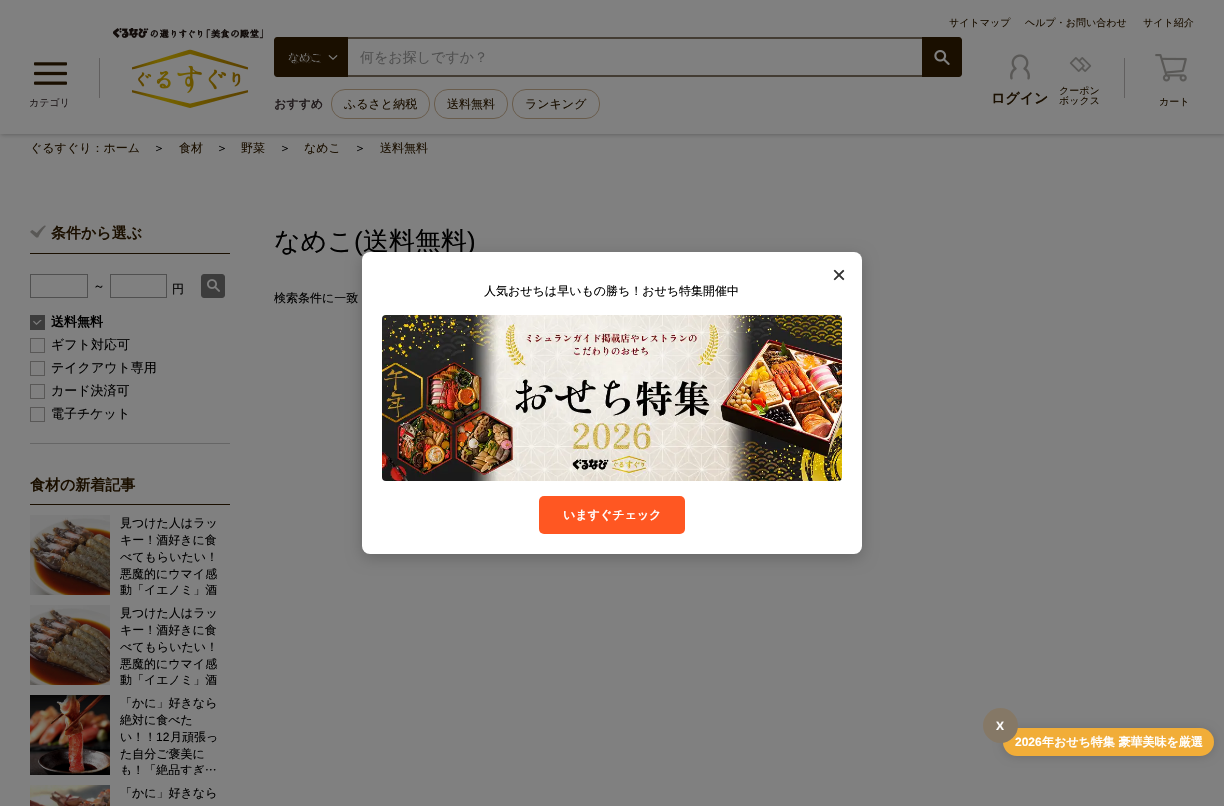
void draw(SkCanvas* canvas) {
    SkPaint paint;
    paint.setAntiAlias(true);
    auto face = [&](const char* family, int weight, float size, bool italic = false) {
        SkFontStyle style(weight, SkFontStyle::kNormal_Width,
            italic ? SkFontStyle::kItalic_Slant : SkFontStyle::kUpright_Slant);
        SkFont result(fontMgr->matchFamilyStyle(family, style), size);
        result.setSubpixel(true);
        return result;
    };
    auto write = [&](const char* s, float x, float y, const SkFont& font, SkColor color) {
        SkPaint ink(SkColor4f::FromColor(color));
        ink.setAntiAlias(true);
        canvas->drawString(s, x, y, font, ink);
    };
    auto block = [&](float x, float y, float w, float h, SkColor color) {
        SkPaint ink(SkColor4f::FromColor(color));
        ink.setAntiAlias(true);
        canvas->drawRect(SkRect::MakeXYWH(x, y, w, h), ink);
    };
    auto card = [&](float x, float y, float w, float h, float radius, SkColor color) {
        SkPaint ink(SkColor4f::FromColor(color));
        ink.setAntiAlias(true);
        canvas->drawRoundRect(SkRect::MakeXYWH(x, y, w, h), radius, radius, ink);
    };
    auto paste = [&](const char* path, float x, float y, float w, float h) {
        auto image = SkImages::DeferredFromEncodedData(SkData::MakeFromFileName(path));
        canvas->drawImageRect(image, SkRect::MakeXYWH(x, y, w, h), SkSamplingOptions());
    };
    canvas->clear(SkColorSetRGB(128, 128, 128));
    canvas->save();
    canvas->clipRect(SkRect::MakeXYWH(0, 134, 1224, 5));
    paint.setColor(SkColorSetARGB(250, 97, 97, 97));
    paint.setMaskFilter(SkMaskFilter::MakeBlur(kNormal_SkBlurStyle, 2));
    canvas->drawRect(SkRect::MakeXYWH(1, 1, 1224, 134), paint);
    paint.setMaskFilter(nullptr);
    canvas->restore();
    auto kFont1 = face("WenQuanYi Zen Hei", 500, 10);
    write("サイトマップ", 949, 26, kFont1, SkColorSetRGB(26, 15, 0));
    write("ヘルプ・お問い合わせ", 1025, 26, kFont1, SkColorSetRGB(26, 15, 0));
    write("サイト紹介", 1143, 26, kFont1, SkColorSetRGB(26, 15, 0));
    paste("pic1.png", 113, 28, 150, 11);
    block(99, 58, 1, 40, SkColorSetRGB(97, 95, 95));
    paste("pic2.png", 34, 62, 33, 23);
    write("カテゴリ", 29, 106, kFont1, SkColorSetRGB(33, 27, 29));
    paste("pic3.png", 132, 49, 116, 59);
    paint.setColor(SkColorSetRGB(26, 15, 0));
    canvas->drawPath(SkPathBuilder().moveTo(277, 37).lineTo(348, 37).lineTo(348, 77).lineTo(277, 77).cubicTo(275.5f, 77, 274, 75.5f, 274, 74).lineTo(274, 40).cubicTo(274, 38.5f, 275.5f, 37, 277, 37).close().detach(), paint);
    auto kFont2 = face("WenQuanYi Zen Hei", 500, 11);
    write("なめこ", 288, 61, kFont2, SkColorSetRGB(128, 128, 128));
    canvas->save();
    canvas->clipRect(SkRect::MakeXYWH(289, 38, 32, 40));
    auto kFont3 = face("WenQuanYi Zen Hei", 500, 12);
    write("なめこ", 289, 62, kFont3, SkColorSetRGB(45, 36, 24));
    canvas->restore();
    paste("pic4.png", 328, 55, 10, 5);
    block(348, 37, 574, 2, SkColorSetRGB(67, 60, 51));
    block(348, 75, 574, 2, SkColorSetRGB(67, 60, 51));
    auto kFont4 = face("WenQuanYi Zen Hei", 500, 14);
    write("何をお探しですか？", 360, 62, kFont4, SkColorSetRGB(80, 80, 80));
    canvas->drawPath(SkPathBuilder().moveTo(922, 37).lineTo(959, 37).cubicTo(960.5f, 37, 962, 38.5f, 962, 40).lineTo(962, 74).cubicTo(962, 75.5f, 960.5f, 77, 959, 77).lineTo(922, 77).close().detach(), paint);
    paste("pic5.png", 934, 50, 16, 15);
    auto kFont5 = face("WenQuanYi Zen Hei", 700, 12);
    write("おすすめ", 274, 108, kFont5, SkColorSetRGB(33, 27, 29));
    paint.setStyle(SkPaint::kStroke_Style);
    paint.setStrokeWidth(1);
    paint.setColor(SkColorSetRGB(105, 92, 76));
    canvas->drawRoundRect(SkRect::MakeXYWH(331.5f, 89.5f, 98, 29), 13.5f, 13.5f, paint);
    write("ふるさと納税", 344, 108, kFont3, SkColorSetRGB(26, 15, 0));
    canvas->drawRoundRect(SkRect::MakeXYWH(434.5f, 89.5f, 73, 29), 13.5f, 13.5f, paint);
    write("送料無料", 447, 108, kFont3, SkColorSetRGB(26, 15, 0));
    canvas->drawRoundRect(SkRect::MakeXYWH(512.5f, 89.5f, 87, 29), 13.5f, 13.5f, paint);
    write("ランキング", 525, 108, kFont3, SkColorSetRGB(26, 15, 0));
    paste("pic6.png", 1010, 54, 20, 26);
    auto kFont6 = face("WenQuanYi Zen Hei", 700, 14);
    write("ログイン", 991, 103, kFont6, SkColorSetRGB(26, 15, 0));
    paste("pic7.png", 1069, 57, 23, 15);
    write("クーポン", 1059, 94, kFont1, SkColorSetRGB(26, 15, 0));
    write("ボックス", 1059, 104, kFont1, SkColorSetRGB(26, 15, 0));
    block(1124, 58, 1, 40, SkColorSetRGB(97, 95, 95));
    paste("pic8.png", 1155, 54, 32, 28);
    write("カート", 1159, 105, kFont1, SkColorSetRGB(26, 15, 0));
    write("ぐるすぐり：ホーム", 30, 152, kFont3, SkColorSetRGB(26, 15, 0));
    write("＞", 153, 152, kFont3, SK_ColorBLACK);
    write("食材", 179, 152, kFont3, SkColorSetRGB(26, 15, 0));
    write("＞", 216, 152, kFont3, SK_ColorBLACK);
    write("野菜", 241, 152, kFont3, SkColorSetRGB(26, 15, 0));
    write("＞", 279, 152, kFont3, SK_ColorBLACK);
    write("なめこ", 304, 152, kFont3, SkColorSetRGB(26, 15, 0));
    write("＞", 354, 152, kFont3, SK_ColorBLACK);
    write("送料無料", 380, 152, kFont3, SkColorSetRGB(26, 15, 0));
    block(30, 443, 200, 1, SkColorSetRGB(102, 102, 102));
    block(30, 253, 200, 1, SkColorSetRGB(26, 15, 0));
    paste("pic9.png", 30, 225, 16, 13);
    auto kFont7 = face("WenQuanYi Zen Hei", 700, 15);
    write("条件から選ぶ", 51, 238, kFont7, SkColorSetRGB(26, 15, 0));
    paint.setColor(SkColorSetRGB(80, 80, 80));
    canvas->drawRect(SkRect::MakeXYWH(30.5f, 274.5f, 57, 23), paint);
    write("～", 93, 290, kFont3, SK_ColorBLACK);
    canvas->drawRect(SkRect::MakeXYWH(110.5f, 274.5f, 56, 23), paint);
    write("円", 172, 293, kFont3, SK_ColorBLACK);
    paint.setStyle(SkPaint::kFill_Style);
    paint.setColor(SkColorSetRGB(60, 60, 60));
    canvas->drawRoundRect(SkRect::MakeXYWH(201.5f, 274.5f, 23, 23), 2.5f, 2.5f, paint);
    paint.setStyle(SkPaint::kStroke_Style);
    canvas->drawRoundRect(SkRect::MakeXYWH(201.5f, 274.5f, 23, 23), 2.5f, 2.5f, paint);
    paste("pic10.png", 207, 279, 13, 13);
    block(30, 315, 15, 15, SkColorSetRGB(60, 60, 60));
    paste("pic11.png", 33, 320, 9, 5);
    auto kFont8 = face("WenQuanYi Zen Hei", 700, 13);
    write("送料無料", 51, 326, kFont8, SK_ColorBLACK);
    paint.setColor(SkColorSetRGB(89, 88, 87));
    canvas->drawRect(SkRect::MakeXYWH(30.5f, 338.5f, 14, 14), paint);
    auto kFont9 = face("WenQuanYi Zen Hei", 500, 13);
    write("ギフト対応可", 51, 349, kFont9, SK_ColorBLACK);
    canvas->drawRect(SkRect::MakeXYWH(30.5f, 361.5f, 14, 14), paint);
    write("テイクアウト専用", 51, 372, kFont9, SK_ColorBLACK);
    canvas->drawRect(SkRect::MakeXYWH(30.5f, 384.5f, 14, 14), paint);
    write("カード決済可", 51, 395, kFont9, SK_ColorBLACK);
    canvas->drawRect(SkRect::MakeXYWH(30.5f, 407.5f, 14, 14), paint);
    write("電子チケット", 51, 418, kFont9, SK_ColorBLACK);
    block(30, 504, 200, 1, SkColorSetRGB(26, 15, 0));
    write("食材の新着記事", 30, 490, kFont7, SkColorSetRGB(26, 15, 0));
    paste("pic12.png", 30, 515, 80, 80);
    write("見つけた人はラッ", 120, 527, kFont3, SK_ColorBLACK);
    write("キー！酒好きに食", 120, 544, kFont3, SK_ColorBLACK);
    write("べてもらいたい！", 120, 561, kFont3, SK_ColorBLACK);
    write("悪魔的にウマイ感", 120, 578, kFont3, SK_ColorBLACK);
    canvas->save();
    canvas->clipRect(SkRect::MakeXYWH(120, 515, 100, 80));
    write("動「イエノミ」酒", 120, 594, kFont3, SK_ColorBLACK);
    canvas->restore();
    paste("pic13.png", 30, 605, 80, 80);
    write("見つけた人はラッ", 120, 617, kFont3, SK_ColorBLACK);
    write("キー！酒好きに食", 120, 634, kFont3, SK_ColorBLACK);
    write("べてもらいたい！", 120, 651, kFont3, SK_ColorBLACK);
    write("悪魔的にウマイ感", 120, 668, kFont3, SK_ColorBLACK);
    canvas->save();
    canvas->clipRect(SkRect::MakeXYWH(120, 605, 100, 80));
    write("動「イエノミ」酒", 120, 684, kFont3, SK_ColorBLACK);
    canvas->restore();
    paste("pic14.png", 30, 695, 80, 80);
    write("「かに」好きなら", 120, 707, kFont3, SK_ColorBLACK);
    write("絶対に食べた", 120, 724, kFont3, SK_ColorBLACK);
    write("い！！", 120, 741, kFont3, SK_ColorBLACK);
    auto kFont10 = face("Liberation Sans", 400, 12);
    write("12", 156, 741, kFont10, SK_ColorBLACK);
    write("月頑張っ", 170, 741, kFont3, SK_ColorBLACK);
    write("た自分ご褒美に", 120, 758, kFont3, SK_ColorBLACK);
    canvas->save();
    canvas->clipRect(SkRect::MakeXYWH(120, 695, 100, 80));
    write("も！「絶品すぎ…", 120, 774, kFont3, SK_ColorBLACK);
    canvas->restore();
    paste("pic15.png", 30, 785, 80, 21);
    write("「かに」好きなら", 120, 797, kFont3, SK_ColorBLACK);
    auto kFont11 = face("WenQuanYi Zen Hei", 500, 26);
    write("なめこ", 274, 250, kFont11, SK_ColorBLACK);
    auto kFont12 = face("Liberation Sans", 400, 26);
    write("(", 354, 250, kFont12, SK_ColorBLACK);
    write("送料無料", 363, 250, kFont11, SK_ColorBLACK);
    write(")", 467, 250, kFont12, SK_ColorBLACK);
    write("検索条件に一致", 274, 302, kFont3, SK_ColorBLACK);
    paint.setStyle(SkPaint::kFill_Style);
    paint.setColor(SkColorSetARGB(51, 0, 0, 0));
    paint.setMaskFilter(SkMaskFilter::MakeBlur(kNormal_SkBlurStyle, 7.5f));
    canvas->drawRoundRect(SkRect::MakeXYWH(362, 256, 500, 302), 8, 8, paint);
    paint.setMaskFilter(nullptr);
    card(362, 252, 500, 302, 8, SK_ColorWHITE);
    auto kFont13 = face("Liberation Sans", 400, 24);
    write("×", 832, 283, kFont13, SkColorSetRGB(51, 51, 51));
    write("人気おせちは早いもの勝ち！おせち特集開催中", 484, 295, kFont3, SK_ColorBLACK);
    paste("pic16.png", 382, 315, 460, 166);
    card(539, 496, 146, 38, 5, SkColorSetRGB(255, 87, 34));
    write("いますぐチェック", 563, 519, kFont5, SK_ColorWHITE);
    paint.setColor(SkColorSetARGB(38, 0, 0, 0));
    paint.setMaskFilter(SkMaskFilter::MakeBlur(kNormal_SkBlurStyle, 5));
    canvas->drawRoundRect(SkRect::MakeXYWH(1003, 729, 211, 28), 14, 14, paint);
    paint.setMaskFilter(nullptr);
    card(1003, 728, 211, 28, 14, SkColorSetRGB(241, 173, 56));
    auto kFont14 = face("Liberation Sans", 700, 12);
    write("2026", 1015, 746, kFont14, SK_ColorWHITE);
    paint.setColor(SkColorSetRGB(133, 120, 102));
    canvas->drawCircle(1000.5f, 725.5f, 17.5f, paint);
    write("X", 996, 730, kFont14, SK_ColorWHITE);
    write("年おせち特集 豪華美味を厳選", 1042, 746, kFont5, SK_ColorWHITE);
}
